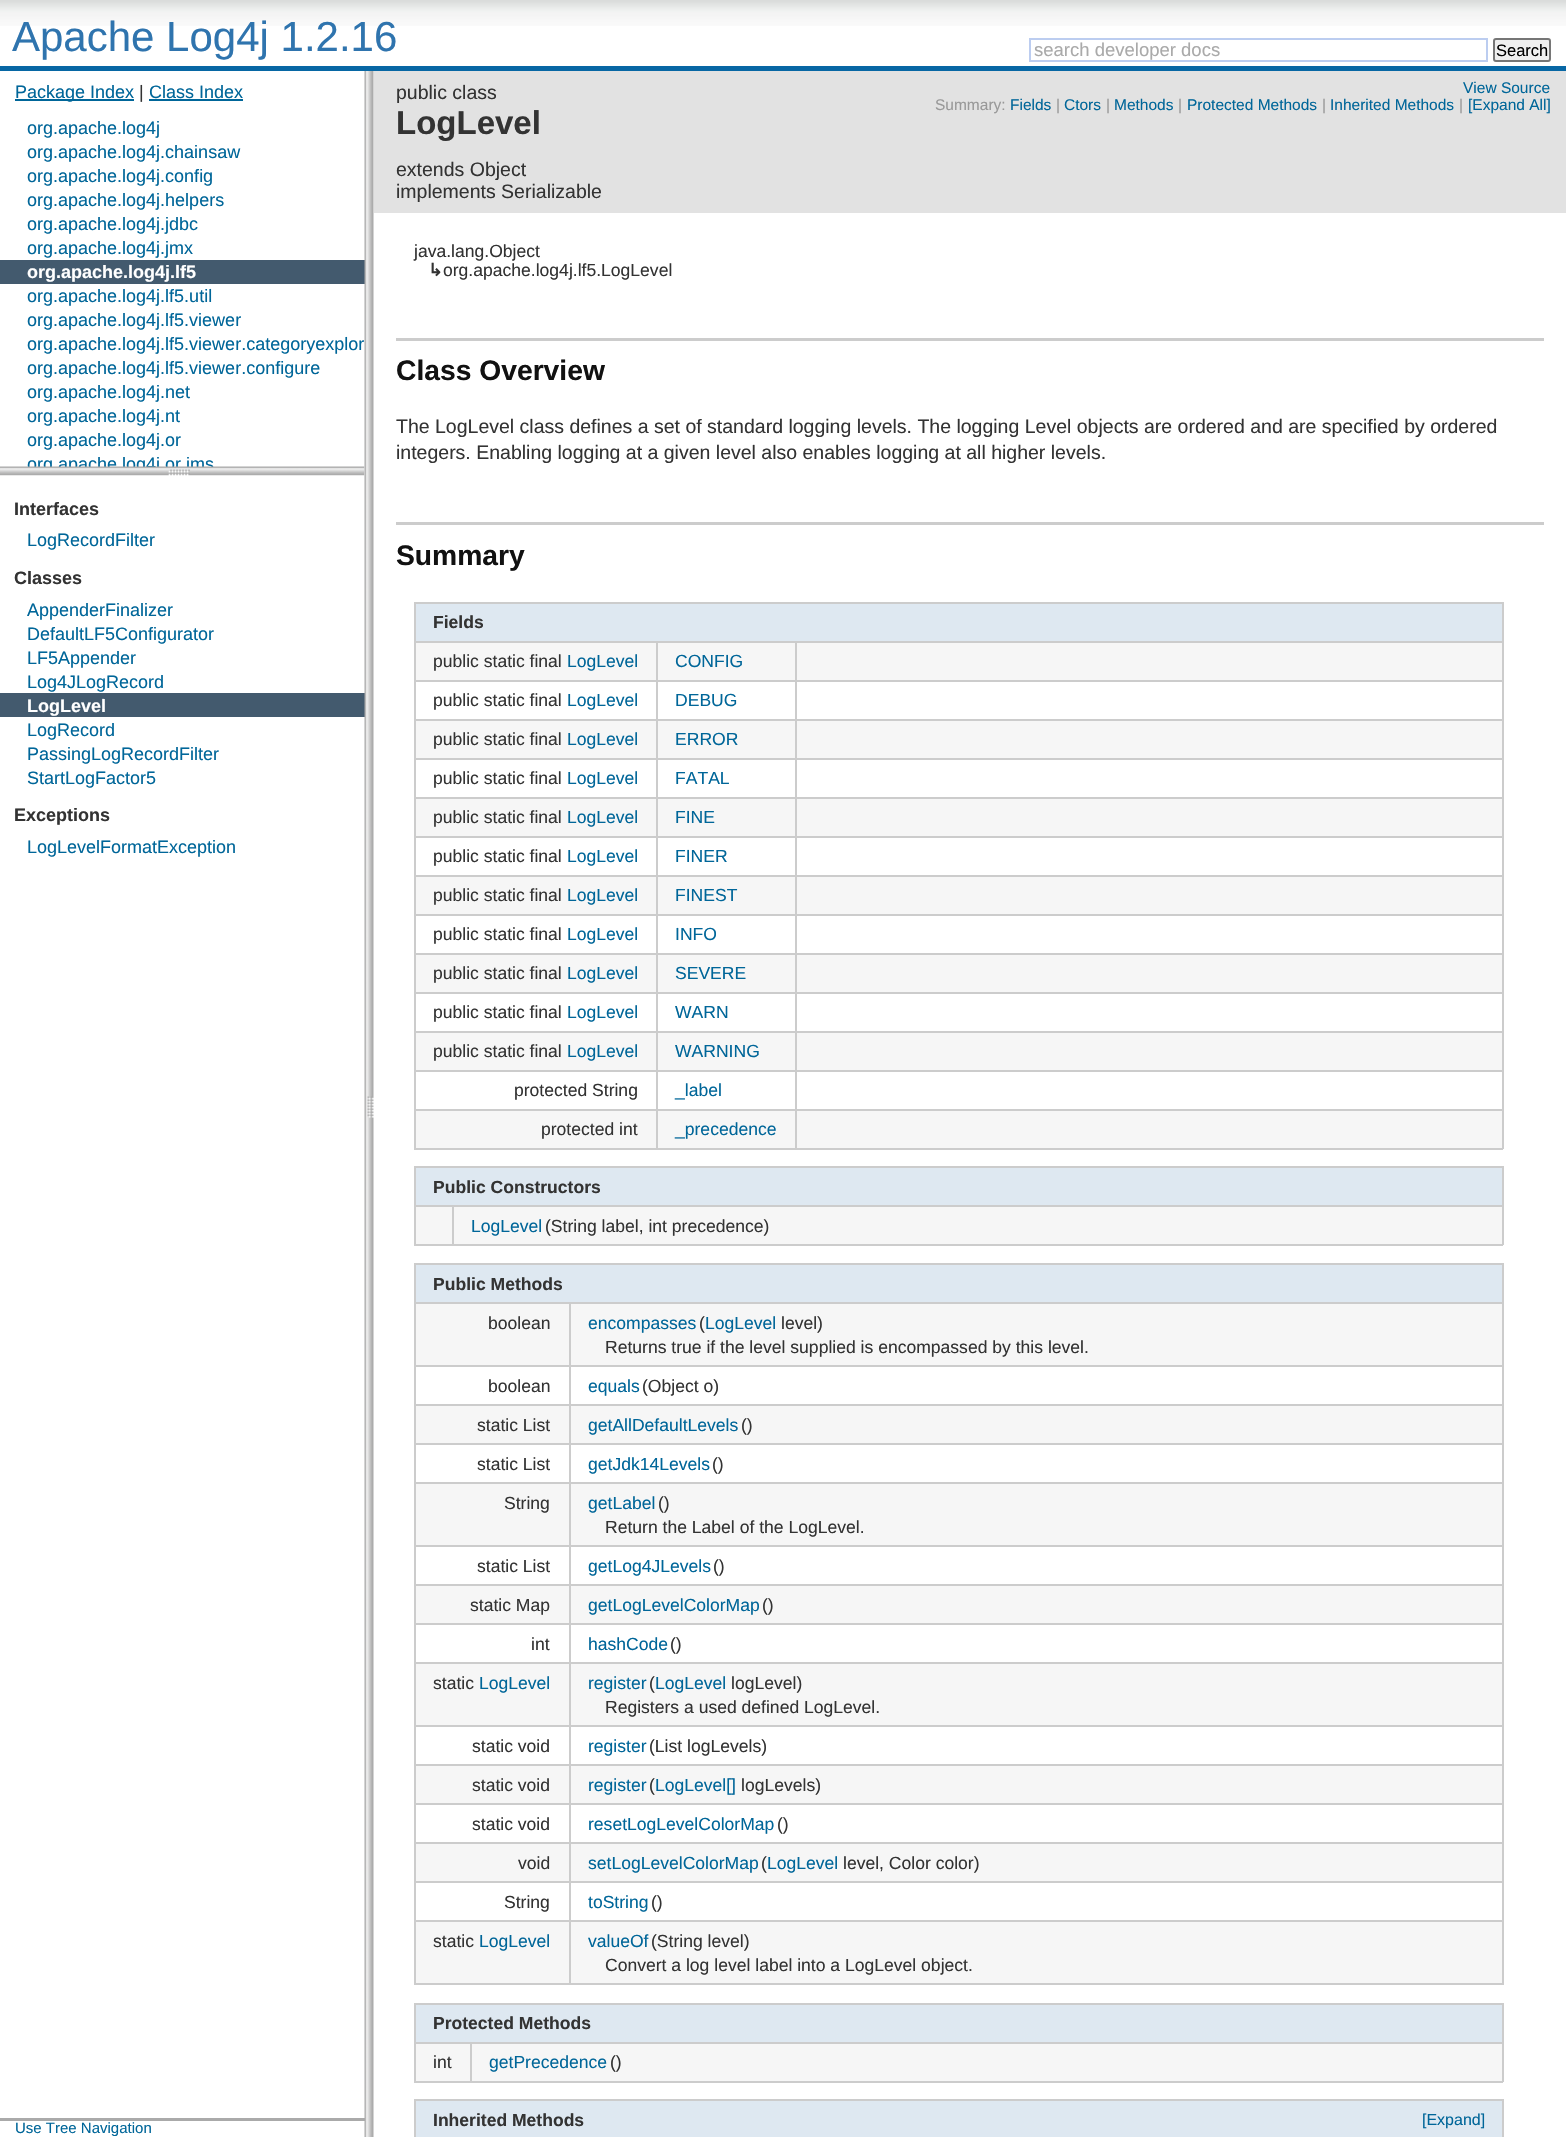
void draw(SkCanvas* canvas) {
    SkPaint paint;
    paint.setAntiAlias(true);
    auto face = [&](const char* family, int weight, float size, bool italic = false) {
        SkFontStyle style(weight, SkFontStyle::kNormal_Width,
            italic ? SkFontStyle::kItalic_Slant : SkFontStyle::kUpright_Slant);
        SkFont result(fontMgr->matchFamilyStyle(family, style), size);
        result.setSubpixel(true);
        return result;
    };
    auto write = [&](const char* s, float x, float y, const SkFont& font, SkColor color) {
        SkPaint ink(SkColor4f::FromColor(color));
        ink.setAntiAlias(true);
        canvas->drawString(s, x, y, font, ink);
    };
    auto block = [&](float x, float y, float w, float h, SkColor color) {
        SkPaint ink(SkColor4f::FromColor(color));
        ink.setAntiAlias(true);
        canvas->drawRect(SkRect::MakeXYWH(x, y, w, h), ink);
    };
    auto paste = [&](const char* path, float x, float y, float w, float h) {
        auto image = SkImages::DeferredFromEncodedData(SkData::MakeFromFileName(path));
        canvas->drawImageRect(image, SkRect::MakeXYWH(x, y, w, h), SkSamplingOptions());
    };
    canvas->clear(SK_ColorWHITE);
    paste("pic1.png", 0, 0, 1566, 26);
    block(0, 66, 1566, 5, SkColorSetRGB(7, 103, 164));
    auto kFont1 = face("Liberation Sans", 400, 42);
    write("Apache Log4j 1.2.16", 12, 51, kFont1, SkColorSetRGB(47, 116, 174));
    paint.setStyle(SkPaint::kStroke_Style);
    paint.setStrokeWidth(2);
    paint.setColor(SkColorSetRGB(188, 205, 240));
    canvas->drawRect(SkRect::MakeXYWH(1030, 39, 457, 22), paint);
    auto kFont2 = face("Liberation Sans", 400, 18.5f);
    write("search developer docs", 1034, 56, kFont2, SkColorSetRGB(170, 170, 170));
    paint.setStyle(SkPaint::kFill_Style);
    paint.setColor(SkColorSetRGB(239, 239, 239));
    canvas->drawRoundRect(SkRect::MakeXYWH(1494, 39, 56, 22), 2, 2, paint);
    paint.setStyle(SkPaint::kStroke_Style);
    paint.setColor(SkColorSetRGB(118, 118, 118));
    canvas->drawRoundRect(SkRect::MakeXYWH(1494, 39, 56, 22), 2, 2, paint);
    auto kFont3 = face("Liberation Sans", 400, 16.5f);
    write("Search", 1496, 56, kFont3, SK_ColorBLACK);
    block(0, 2118, 365, 3, SkColorSetRGB(170, 170, 170));
    block(15, 99, 119, 2, SkColorSetRGB(0, 102, 153));
    auto kFont4 = face("Liberation Sans", 400, 18);
    write("Package Index", 15, 98, kFont4, SkColorSetRGB(0, 102, 153));
    write("|", 139, 98, kFont4, SkColorSetRGB(51, 51, 51));
    write("Class Index", 149, 98, kFont4, SkColorSetRGB(0, 102, 153));
    block(149, 99, 94, 2, SkColorSetRGB(0, 102, 153));
    write("org.apache.log4j", 27, 134, kFont4, SkColorSetRGB(0, 102, 153));
    write("org.apache.log4j.chainsaw", 27, 158, kFont4, SkColorSetRGB(0, 102, 153));
    write("org.apache.log4j.config", 27, 182, kFont4, SkColorSetRGB(0, 102, 153));
    write("org.apache.log4j.helpers", 27, 206, kFont4, SkColorSetRGB(0, 102, 153));
    write("org.apache.log4j.jdbc", 27, 230, kFont4, SkColorSetRGB(0, 102, 153));
    write("org.apache.log4j.jmx", 27, 254, kFont4, SkColorSetRGB(0, 102, 153));
    block(0, 260, 365, 24, SkColorSetRGB(67, 90, 110));
    auto kFont5 = face("Liberation Sans", 700, 18);
    write("org.apache.log4j.lf5", 27, 278, kFont5, SK_ColorWHITE);
    write("org.apache.log4j.lf5.util", 27, 302, kFont4, SkColorSetRGB(0, 102, 153));
    write("org.apache.log4j.lf5.viewer", 27, 326, kFont4, SkColorSetRGB(0, 102, 153));
    write("org.apache.log4j.lf5.viewer.categoryexplor", 27, 350, kFont4, SkColorSetRGB(0, 102, 153));
    write("org.apache.log4j.lf5.viewer.configure", 27, 374, kFont4, SkColorSetRGB(0, 102, 153));
    write("org.apache.log4j.net", 27, 398, kFont4, SkColorSetRGB(0, 102, 153));
    write("org.apache.log4j.nt", 27, 422, kFont4, SkColorSetRGB(0, 102, 153));
    write("org.apache.log4j.or", 27, 446, kFont4, SkColorSetRGB(0, 102, 153));
    write("org.apache.log4j.or.jms", 27, 470, kFont4, SkColorSetRGB(0, 102, 153));
    paste("pic2.png", 0, 466, 365, 10);
    write("Interfaces", 14, 515, kFont5, SkColorSetRGB(51, 51, 51));
    write("LogRecordFilter", 27, 546, kFont4, SkColorSetRGB(0, 102, 153));
    write("Classes", 14, 584, kFont5, SkColorSetRGB(51, 51, 51));
    write("AppenderFinalizer", 27, 616, kFont4, SkColorSetRGB(0, 102, 153));
    write("DefaultLF5Configurator", 27, 640, kFont4, SkColorSetRGB(0, 102, 153));
    write("LF5Appender", 27, 664, kFont4, SkColorSetRGB(0, 102, 153));
    write("Log4JLogRecord", 27, 688, kFont4, SkColorSetRGB(0, 102, 153));
    block(0, 693, 365, 24, SkColorSetRGB(67, 90, 110));
    write("LogLevel", 27, 712, kFont5, SK_ColorWHITE);
    write("LogRecord", 27, 736, kFont4, SkColorSetRGB(0, 102, 153));
    write("PassingLogRecordFilter", 27, 760, kFont4, SkColorSetRGB(0, 102, 153));
    write("StartLogFactor5", 27, 784, kFont4, SkColorSetRGB(0, 102, 153));
    write("Exceptions", 14, 821, kFont5, SkColorSetRGB(51, 51, 51));
    write("LogLevelFormatException", 27, 853, kFont4, SkColorSetRGB(0, 102, 153));
    paste("pic3.png", 364, 71, 10, 2066);
    auto kFont6 = face("Liberation Sans", 400, 15);
    write("Use Tree Navigation", 15, 2133, kFont6, SkColorSetRGB(0, 102, 153));
    block(374, 71, 1192, 142, SkColorSetRGB(226, 226, 226));
    auto kFont7 = face("Liberation Sans", 400, 19.5f);
    write("public class", 396, 99, kFont7, SkColorSetRGB(51, 51, 51));
    auto kFont8 = face("Liberation Sans", 700, 33);
    write("LogLevel", 396, 134, kFont8, SkColorSetRGB(51, 51, 51));
    write("extends Object", 396, 176, kFont7, SkColorSetRGB(51, 51, 51));
    write("implements Serializable", 396, 198, kFont7, SkColorSetRGB(51, 51, 51));
    auto kFont9 = face("Liberation Sans", 400, 15.5f);
    write("View Source", 1463, 93, kFont9, SkColorSetRGB(0, 102, 153));
    write("Summary:", 935, 110, kFont9, SkColorSetRGB(153, 153, 153));
    write("Fields", 1010, 110, kFont9, SkColorSetRGB(0, 102, 153));
    write("|", 1056, 110, kFont9, SkColorSetRGB(153, 153, 153));
    write("Ctors", 1064, 110, kFont9, SkColorSetRGB(0, 102, 153));
    write("|", 1106, 110, kFont9, SkColorSetRGB(153, 153, 153));
    write("Methods", 1114, 110, kFont9, SkColorSetRGB(0, 102, 153));
    write("|", 1178, 110, kFont9, SkColorSetRGB(153, 153, 153));
    write("Protected Methods", 1187, 110, kFont9, SkColorSetRGB(0, 102, 153));
    write("|", 1322, 110, kFont9, SkColorSetRGB(153, 153, 153));
    write("Inherited Methods", 1330, 110, kFont9, SkColorSetRGB(0, 102, 153));
    write("|", 1459, 110, kFont9, SkColorSetRGB(153, 153, 153));
    write("[Expand All]", 1468, 110, kFont9, SkColorSetRGB(0, 102, 153));
    auto kFont10 = face("Liberation Sans", 400, 17.55f);
    write("java.lang.Object", 414, 257, kFont10, SkColorSetRGB(51, 51, 51));
    auto kFont11 = face("DejaVu Sans", 700, 17.55f);
    write("↳", 428, 276, kFont11, SkColorSetRGB(51, 51, 51));
    write("org.apache.log4j.lf5.LogLevel", 443, 276, kFont10, SkColorSetRGB(51, 51, 51));
    block(396, 338, 1148, 3, SkColorSetRGB(204, 204, 204));
    auto kFont12 = face("Liberation Sans", 700, 28.25f);
    write("Class Overview", 396, 380, kFont12, SkColorSetRGB(17, 17, 17));
    write("The LogLevel class defines a set of standard logging levels. The logging Level objects are ordered and are specified by ordered", 396, 433, kFont7, SkColorSetRGB(51, 51, 51));
    write("integers. Enabling logging at a given level also enables logging at all higher levels.", 396, 459, kFont7, SkColorSetRGB(51, 51, 51));
    block(396, 522, 1148, 3, SkColorSetRGB(204, 204, 204));
    write("Summary", 396, 565, kFont12, SkColorSetRGB(17, 17, 17));
    block(416, 604, 1086, 37, SkColorSetRGB(222, 232, 241));
    block(414, 602, 1089, 2, SkColorSetRGB(204, 204, 204));
    block(795, 641, 708, 2, SkColorSetRGB(204, 204, 204));
    block(795, 680, 708, 2, SkColorSetRGB(204, 204, 204));
    block(795, 719, 708, 2, SkColorSetRGB(204, 204, 204));
    block(795, 758, 708, 2, SkColorSetRGB(204, 204, 204));
    block(795, 797, 708, 2, SkColorSetRGB(204, 204, 204));
    block(795, 836, 708, 2, SkColorSetRGB(204, 204, 204));
    block(795, 875, 708, 2, SkColorSetRGB(204, 204, 204));
    block(795, 914, 708, 2, SkColorSetRGB(204, 204, 204));
    block(795, 953, 708, 2, SkColorSetRGB(204, 204, 204));
    block(795, 992, 708, 2, SkColorSetRGB(204, 204, 204));
    block(795, 1031, 708, 2, SkColorSetRGB(204, 204, 204));
    block(795, 1070, 708, 2, SkColorSetRGB(204, 204, 204));
    block(795, 1109, 708, 2, SkColorSetRGB(204, 204, 204));
    block(1502, 1109, 2, 40, SkColorSetRGB(204, 204, 204));
    block(1502, 1070, 2, 40, SkColorSetRGB(204, 204, 204));
    block(1502, 1031, 2, 40, SkColorSetRGB(204, 204, 204));
    block(1502, 992, 2, 40, SkColorSetRGB(204, 204, 204));
    block(1502, 953, 2, 40, SkColorSetRGB(204, 204, 204));
    block(1502, 914, 2, 40, SkColorSetRGB(204, 204, 204));
    block(1502, 875, 2, 40, SkColorSetRGB(204, 204, 204));
    block(1502, 836, 2, 40, SkColorSetRGB(204, 204, 204));
    block(1502, 797, 2, 40, SkColorSetRGB(204, 204, 204));
    block(1502, 758, 2, 40, SkColorSetRGB(204, 204, 204));
    block(1502, 719, 2, 40, SkColorSetRGB(204, 204, 204));
    block(1502, 680, 2, 40, SkColorSetRGB(204, 204, 204));
    block(1502, 641, 2, 40, SkColorSetRGB(204, 204, 204));
    block(1502, 602, 2, 40, SkColorSetRGB(204, 204, 204));
    block(416, 643, 1086, 37, SkColorSetRGB(246, 246, 246));
    block(416, 721, 1086, 37, SkColorSetRGB(246, 246, 246));
    block(416, 799, 1086, 37, SkColorSetRGB(246, 246, 246));
    block(416, 877, 1086, 37, SkColorSetRGB(246, 246, 246));
    block(416, 955, 1086, 37, SkColorSetRGB(246, 246, 246));
    block(416, 1033, 1086, 37, SkColorSetRGB(246, 246, 246));
    block(416, 1111, 1086, 37, SkColorSetRGB(246, 246, 246));
    block(795, 1148, 708, 2, SkColorSetRGB(204, 204, 204));
    block(795, 1109, 2, 40, SkColorSetRGB(204, 204, 204));
    block(656, 1109, 141, 2, SkColorSetRGB(204, 204, 204));
    block(795, 1070, 2, 40, SkColorSetRGB(204, 204, 204));
    block(656, 1070, 141, 2, SkColorSetRGB(204, 204, 204));
    block(795, 1031, 2, 40, SkColorSetRGB(204, 204, 204));
    block(656, 1031, 141, 2, SkColorSetRGB(204, 204, 204));
    block(795, 992, 2, 40, SkColorSetRGB(204, 204, 204));
    block(656, 992, 141, 2, SkColorSetRGB(204, 204, 204));
    block(795, 953, 2, 40, SkColorSetRGB(204, 204, 204));
    block(656, 953, 141, 2, SkColorSetRGB(204, 204, 204));
    block(795, 914, 2, 40, SkColorSetRGB(204, 204, 204));
    block(656, 914, 141, 2, SkColorSetRGB(204, 204, 204));
    block(795, 875, 2, 40, SkColorSetRGB(204, 204, 204));
    block(656, 875, 141, 2, SkColorSetRGB(204, 204, 204));
    block(795, 836, 2, 40, SkColorSetRGB(204, 204, 204));
    block(656, 836, 141, 2, SkColorSetRGB(204, 204, 204));
    block(795, 797, 2, 40, SkColorSetRGB(204, 204, 204));
    block(656, 797, 141, 2, SkColorSetRGB(204, 204, 204));
    block(795, 758, 2, 40, SkColorSetRGB(204, 204, 204));
    block(656, 758, 141, 2, SkColorSetRGB(204, 204, 204));
    block(795, 719, 2, 40, SkColorSetRGB(204, 204, 204));
    block(656, 719, 141, 2, SkColorSetRGB(204, 204, 204));
    block(795, 680, 2, 40, SkColorSetRGB(204, 204, 204));
    block(656, 680, 141, 2, SkColorSetRGB(204, 204, 204));
    block(795, 641, 2, 40, SkColorSetRGB(204, 204, 204));
    block(656, 641, 141, 2, SkColorSetRGB(204, 204, 204));
    block(656, 1148, 141, 2, SkColorSetRGB(204, 204, 204));
    block(656, 1109, 2, 40, SkColorSetRGB(204, 204, 204));
    block(414, 1109, 243, 2, SkColorSetRGB(204, 204, 204));
    block(656, 1070, 2, 40, SkColorSetRGB(204, 204, 204));
    block(414, 1070, 243, 2, SkColorSetRGB(204, 204, 204));
    block(656, 1031, 2, 40, SkColorSetRGB(204, 204, 204));
    block(414, 1031, 243, 2, SkColorSetRGB(204, 204, 204));
    block(656, 992, 2, 40, SkColorSetRGB(204, 204, 204));
    block(414, 992, 243, 2, SkColorSetRGB(204, 204, 204));
    block(656, 953, 2, 40, SkColorSetRGB(204, 204, 204));
    block(414, 953, 243, 2, SkColorSetRGB(204, 204, 204));
    block(656, 914, 2, 40, SkColorSetRGB(204, 204, 204));
    block(414, 914, 243, 2, SkColorSetRGB(204, 204, 204));
    block(656, 875, 2, 40, SkColorSetRGB(204, 204, 204));
    block(414, 875, 243, 2, SkColorSetRGB(204, 204, 204));
    block(656, 836, 2, 40, SkColorSetRGB(204, 204, 204));
    block(414, 836, 243, 2, SkColorSetRGB(204, 204, 204));
    block(656, 797, 2, 40, SkColorSetRGB(204, 204, 204));
    block(414, 797, 243, 2, SkColorSetRGB(204, 204, 204));
    block(656, 758, 2, 40, SkColorSetRGB(204, 204, 204));
    block(414, 758, 243, 2, SkColorSetRGB(204, 204, 204));
    block(656, 719, 2, 40, SkColorSetRGB(204, 204, 204));
    block(414, 719, 243, 2, SkColorSetRGB(204, 204, 204));
    block(656, 680, 2, 40, SkColorSetRGB(204, 204, 204));
    block(414, 680, 243, 2, SkColorSetRGB(204, 204, 204));
    block(656, 641, 2, 40, SkColorSetRGB(204, 204, 204));
    block(414, 641, 243, 2, SkColorSetRGB(204, 204, 204));
    block(414, 1148, 243, 2, SkColorSetRGB(204, 204, 204));
    block(414, 1109, 2, 40, SkColorSetRGB(204, 204, 204));
    block(414, 1070, 2, 40, SkColorSetRGB(204, 204, 204));
    block(414, 1031, 2, 40, SkColorSetRGB(204, 204, 204));
    block(414, 992, 2, 40, SkColorSetRGB(204, 204, 204));
    block(414, 953, 2, 40, SkColorSetRGB(204, 204, 204));
    block(414, 914, 2, 40, SkColorSetRGB(204, 204, 204));
    block(414, 875, 2, 40, SkColorSetRGB(204, 204, 204));
    block(414, 836, 2, 40, SkColorSetRGB(204, 204, 204));
    block(414, 797, 2, 40, SkColorSetRGB(204, 204, 204));
    block(414, 758, 2, 40, SkColorSetRGB(204, 204, 204));
    block(414, 719, 2, 40, SkColorSetRGB(204, 204, 204));
    block(414, 680, 2, 40, SkColorSetRGB(204, 204, 204));
    block(414, 641, 2, 40, SkColorSetRGB(204, 204, 204));
    block(414, 602, 2, 40, SkColorSetRGB(204, 204, 204));
    auto kFont13 = face("Liberation Sans", 700, 17.55f);
    write("Fields", 433, 628, kFont13, SkColorSetRGB(51, 51, 51));
    write("public static final", 433, 667, kFont10, SkColorSetRGB(51, 51, 51));
    write("LogLevel", 567, 667, kFont10, SkColorSetRGB(0, 102, 153));
    write("CONFIG", 675, 667, kFont10, SkColorSetRGB(0, 102, 153));
    write("public static final", 433, 706, kFont10, SkColorSetRGB(51, 51, 51));
    write("LogLevel", 567, 706, kFont10, SkColorSetRGB(0, 102, 153));
    write("DEBUG", 675, 706, kFont10, SkColorSetRGB(0, 102, 153));
    write("public static final", 433, 745, kFont10, SkColorSetRGB(51, 51, 51));
    write("LogLevel", 567, 745, kFont10, SkColorSetRGB(0, 102, 153));
    write("ERROR", 675, 745, kFont10, SkColorSetRGB(0, 102, 153));
    write("public static final", 433, 784, kFont10, SkColorSetRGB(51, 51, 51));
    write("LogLevel", 567, 784, kFont10, SkColorSetRGB(0, 102, 153));
    write("FATAL", 675, 784, kFont10, SkColorSetRGB(0, 102, 153));
    write("public static final", 433, 823, kFont10, SkColorSetRGB(51, 51, 51));
    write("LogLevel", 567, 823, kFont10, SkColorSetRGB(0, 102, 153));
    write("FINE", 675, 823, kFont10, SkColorSetRGB(0, 102, 153));
    write("public static final", 433, 862, kFont10, SkColorSetRGB(51, 51, 51));
    write("LogLevel", 567, 862, kFont10, SkColorSetRGB(0, 102, 153));
    write("FINER", 675, 862, kFont10, SkColorSetRGB(0, 102, 153));
    write("public static final", 433, 901, kFont10, SkColorSetRGB(51, 51, 51));
    write("LogLevel", 567, 901, kFont10, SkColorSetRGB(0, 102, 153));
    write("FINEST", 675, 901, kFont10, SkColorSetRGB(0, 102, 153));
    write("public static final", 433, 940, kFont10, SkColorSetRGB(51, 51, 51));
    write("LogLevel", 567, 940, kFont10, SkColorSetRGB(0, 102, 153));
    write("INFO", 675, 940, kFont10, SkColorSetRGB(0, 102, 153));
    write("public static final", 433, 979, kFont10, SkColorSetRGB(51, 51, 51));
    write("LogLevel", 567, 979, kFont10, SkColorSetRGB(0, 102, 153));
    write("SEVERE", 675, 979, kFont10, SkColorSetRGB(0, 102, 153));
    write("public static final", 433, 1018, kFont10, SkColorSetRGB(51, 51, 51));
    write("LogLevel", 567, 1018, kFont10, SkColorSetRGB(0, 102, 153));
    write("WARN", 675, 1018, kFont10, SkColorSetRGB(0, 102, 153));
    write("public static final", 433, 1057, kFont10, SkColorSetRGB(51, 51, 51));
    write("LogLevel", 567, 1057, kFont10, SkColorSetRGB(0, 102, 153));
    write("WARNING", 675, 1057, kFont10, SkColorSetRGB(0, 102, 153));
    write("protected String", 514, 1096, kFont10, SkColorSetRGB(51, 51, 51));
    write("_label", 675, 1096, kFont10, SkColorSetRGB(0, 102, 153));
    write("protected int", 541, 1135, kFont10, SkColorSetRGB(51, 51, 51));
    write("_precedence", 675, 1135, kFont10, SkColorSetRGB(0, 102, 153));
    block(416, 1168, 1086, 37, SkColorSetRGB(222, 232, 241));
    block(414, 1166, 1089, 2, SkColorSetRGB(204, 204, 204));
    block(452, 1205, 1051, 2, SkColorSetRGB(204, 204, 204));
    block(1502, 1205, 2, 40, SkColorSetRGB(204, 204, 204));
    block(1502, 1166, 2, 40, SkColorSetRGB(204, 204, 204));
    block(416, 1207, 1086, 37, SkColorSetRGB(246, 246, 246));
    block(452, 1244, 1051, 2, SkColorSetRGB(204, 204, 204));
    block(452, 1205, 2, 40, SkColorSetRGB(204, 204, 204));
    block(414, 1205, 39, 2, SkColorSetRGB(204, 204, 204));
    block(414, 1244, 39, 2, SkColorSetRGB(204, 204, 204));
    block(414, 1205, 2, 40, SkColorSetRGB(204, 204, 204));
    block(414, 1166, 2, 40, SkColorSetRGB(204, 204, 204));
    write("Public Constructors", 433, 1193, kFont13, SkColorSetRGB(51, 51, 51));
    write("LogLevel", 471, 1232, kFont10, SkColorSetRGB(0, 102, 153));
    write("(String label, int precedence)", 545, 1232, kFont10, SkColorSetRGB(51, 51, 51));
    block(416, 1265, 1086, 37, SkColorSetRGB(222, 232, 241));
    block(414, 1263, 1089, 2, SkColorSetRGB(204, 204, 204));
    block(569, 1302, 934, 2, SkColorSetRGB(204, 204, 204));
    block(569, 1365, 934, 2, SkColorSetRGB(204, 204, 204));
    block(569, 1404, 934, 2, SkColorSetRGB(204, 204, 204));
    block(569, 1443, 934, 2, SkColorSetRGB(204, 204, 204));
    block(569, 1482, 934, 2, SkColorSetRGB(204, 204, 204));
    block(569, 1545, 934, 2, SkColorSetRGB(204, 204, 204));
    block(569, 1584, 934, 2, SkColorSetRGB(204, 204, 204));
    block(569, 1623, 934, 2, SkColorSetRGB(204, 204, 204));
    block(569, 1662, 934, 2, SkColorSetRGB(204, 204, 204));
    block(569, 1725, 934, 2, SkColorSetRGB(204, 204, 204));
    block(569, 1764, 934, 2, SkColorSetRGB(204, 204, 204));
    block(569, 1803, 934, 2, SkColorSetRGB(204, 204, 204));
    block(569, 1842, 934, 2, SkColorSetRGB(204, 204, 204));
    block(569, 1881, 934, 2, SkColorSetRGB(204, 204, 204));
    block(569, 1920, 934, 2, SkColorSetRGB(204, 204, 204));
    block(1502, 1920, 2, 65, SkColorSetRGB(204, 204, 204));
    block(1502, 1881, 2, 41, SkColorSetRGB(204, 204, 204));
    block(1502, 1842, 2, 41, SkColorSetRGB(204, 204, 204));
    block(1502, 1803, 2, 41, SkColorSetRGB(204, 204, 204));
    block(1502, 1764, 2, 41, SkColorSetRGB(204, 204, 204));
    block(1502, 1725, 2, 41, SkColorSetRGB(204, 204, 204));
    block(1502, 1662, 2, 65, SkColorSetRGB(204, 204, 204));
    block(1502, 1623, 2, 41, SkColorSetRGB(204, 204, 204));
    block(1502, 1584, 2, 41, SkColorSetRGB(204, 204, 204));
    block(1502, 1545, 2, 41, SkColorSetRGB(204, 204, 204));
    block(1502, 1482, 2, 65, SkColorSetRGB(204, 204, 204));
    block(1502, 1443, 2, 41, SkColorSetRGB(204, 204, 204));
    block(1502, 1404, 2, 41, SkColorSetRGB(204, 204, 204));
    block(1502, 1365, 2, 41, SkColorSetRGB(204, 204, 204));
    block(1502, 1302, 2, 65, SkColorSetRGB(204, 204, 204));
    block(1502, 1263, 2, 41, SkColorSetRGB(204, 204, 204));
    block(416, 1304, 1086, 61, SkColorSetRGB(246, 246, 246));
    block(416, 1406, 1086, 37, SkColorSetRGB(246, 246, 246));
    block(416, 1484, 1086, 61, SkColorSetRGB(246, 246, 246));
    block(416, 1586, 1086, 37, SkColorSetRGB(246, 246, 246));
    block(416, 1664, 1086, 61, SkColorSetRGB(246, 246, 246));
    block(416, 1766, 1086, 37, SkColorSetRGB(246, 246, 246));
    block(416, 1844, 1086, 37, SkColorSetRGB(246, 246, 246));
    block(416, 1922, 1086, 61, SkColorSetRGB(246, 246, 246));
    block(569, 1983, 934, 2, SkColorSetRGB(204, 204, 204));
    block(569, 1920, 2, 65, SkColorSetRGB(204, 204, 204));
    block(414, 1920, 156, 2, SkColorSetRGB(204, 204, 204));
    block(569, 1881, 2, 41, SkColorSetRGB(204, 204, 204));
    block(414, 1881, 156, 2, SkColorSetRGB(204, 204, 204));
    block(569, 1842, 2, 41, SkColorSetRGB(204, 204, 204));
    block(414, 1842, 156, 2, SkColorSetRGB(204, 204, 204));
    block(569, 1803, 2, 41, SkColorSetRGB(204, 204, 204));
    block(414, 1803, 156, 2, SkColorSetRGB(204, 204, 204));
    block(569, 1764, 2, 41, SkColorSetRGB(204, 204, 204));
    block(414, 1764, 156, 2, SkColorSetRGB(204, 204, 204));
    block(569, 1725, 2, 41, SkColorSetRGB(204, 204, 204));
    block(414, 1725, 156, 2, SkColorSetRGB(204, 204, 204));
    block(569, 1662, 2, 65, SkColorSetRGB(204, 204, 204));
    block(414, 1662, 156, 2, SkColorSetRGB(204, 204, 204));
    block(569, 1623, 2, 41, SkColorSetRGB(204, 204, 204));
    block(414, 1623, 156, 2, SkColorSetRGB(204, 204, 204));
    block(569, 1584, 2, 41, SkColorSetRGB(204, 204, 204));
    block(414, 1584, 156, 2, SkColorSetRGB(204, 204, 204));
    block(569, 1545, 2, 41, SkColorSetRGB(204, 204, 204));
    block(414, 1545, 156, 2, SkColorSetRGB(204, 204, 204));
    block(569, 1482, 2, 65, SkColorSetRGB(204, 204, 204));
    block(414, 1482, 156, 2, SkColorSetRGB(204, 204, 204));
    block(569, 1443, 2, 41, SkColorSetRGB(204, 204, 204));
    block(414, 1443, 156, 2, SkColorSetRGB(204, 204, 204));
    block(569, 1404, 2, 41, SkColorSetRGB(204, 204, 204));
    block(414, 1404, 156, 2, SkColorSetRGB(204, 204, 204));
    block(569, 1365, 2, 41, SkColorSetRGB(204, 204, 204));
    block(414, 1365, 156, 2, SkColorSetRGB(204, 204, 204));
    block(569, 1302, 2, 65, SkColorSetRGB(204, 204, 204));
    block(414, 1302, 156, 2, SkColorSetRGB(204, 204, 204));
    block(414, 1983, 156, 2, SkColorSetRGB(204, 204, 204));
    block(414, 1920, 2, 65, SkColorSetRGB(204, 204, 204));
    block(414, 1881, 2, 41, SkColorSetRGB(204, 204, 204));
    block(414, 1842, 2, 41, SkColorSetRGB(204, 204, 204));
    block(414, 1803, 2, 41, SkColorSetRGB(204, 204, 204));
    block(414, 1764, 2, 41, SkColorSetRGB(204, 204, 204));
    block(414, 1725, 2, 41, SkColorSetRGB(204, 204, 204));
    block(414, 1662, 2, 65, SkColorSetRGB(204, 204, 204));
    block(414, 1623, 2, 41, SkColorSetRGB(204, 204, 204));
    block(414, 1584, 2, 41, SkColorSetRGB(204, 204, 204));
    block(414, 1545, 2, 41, SkColorSetRGB(204, 204, 204));
    block(414, 1482, 2, 65, SkColorSetRGB(204, 204, 204));
    block(414, 1443, 2, 41, SkColorSetRGB(204, 204, 204));
    block(414, 1404, 2, 41, SkColorSetRGB(204, 204, 204));
    block(414, 1365, 2, 41, SkColorSetRGB(204, 204, 204));
    block(414, 1302, 2, 65, SkColorSetRGB(204, 204, 204));
    block(414, 1263, 2, 41, SkColorSetRGB(204, 204, 204));
    write("Public Methods", 433, 1290, kFont13, SkColorSetRGB(51, 51, 51));
    write("boolean", 488, 1329, kFont10, SkColorSetRGB(51, 51, 51));
    write("encompasses", 588, 1329, kFont10, SkColorSetRGB(0, 102, 153));
    write("(", 699, 1329, kFont10, SkColorSetRGB(51, 51, 51));
    write("LogLevel", 705, 1329, kFont10, SkColorSetRGB(0, 102, 153));
    write("level)", 781, 1329, kFont10, SkColorSetRGB(51, 51, 51));
    write("Returns true if the level supplied is encompassed by this level.", 605, 1353, kFont10, SkColorSetRGB(51, 51, 51));
    write("boolean", 488, 1392, kFont10, SkColorSetRGB(51, 51, 51));
    write("equals", 588, 1392, kFont10, SkColorSetRGB(0, 102, 153));
    write("(Object o)", 642, 1392, kFont10, SkColorSetRGB(51, 51, 51));
    write("static List", 477, 1431, kFont10, SkColorSetRGB(51, 51, 51));
    write("getAllDefaultLevels", 588, 1431, kFont10, SkColorSetRGB(0, 102, 153));
    write("()", 741, 1431, kFont10, SkColorSetRGB(51, 51, 51));
    write("static List", 477, 1470, kFont10, SkColorSetRGB(51, 51, 51));
    write("getJdk14Levels", 588, 1470, kFont10, SkColorSetRGB(0, 102, 153));
    write("()", 712, 1470, kFont10, SkColorSetRGB(51, 51, 51));
    write("String", 504, 1509, kFont10, SkColorSetRGB(51, 51, 51));
    write("getLabel", 588, 1509, kFont10, SkColorSetRGB(0, 102, 153));
    write("()", 658, 1509, kFont10, SkColorSetRGB(51, 51, 51));
    write("Return the Label of the LogLevel.", 605, 1533, kFont10, SkColorSetRGB(51, 51, 51));
    write("static List", 477, 1572, kFont10, SkColorSetRGB(51, 51, 51));
    write("getLog4JLevels", 588, 1572, kFont10, SkColorSetRGB(0, 102, 153));
    write("()", 713, 1572, kFont10, SkColorSetRGB(51, 51, 51));
    write("static Map", 470, 1611, kFont10, SkColorSetRGB(51, 51, 51));
    write("getLogLevelColorMap", 588, 1611, kFont10, SkColorSetRGB(0, 102, 153));
    write("()", 762, 1611, kFont10, SkColorSetRGB(51, 51, 51));
    write("int", 531, 1650, kFont10, SkColorSetRGB(51, 51, 51));
    write("hashCode", 588, 1650, kFont10, SkColorSetRGB(0, 102, 153));
    write("()", 670, 1650, kFont10, SkColorSetRGB(51, 51, 51));
    write("static", 433, 1689, kFont10, SkColorSetRGB(51, 51, 51));
    write("LogLevel", 479, 1689, kFont10, SkColorSetRGB(0, 102, 153));
    write("register", 588, 1689, kFont10, SkColorSetRGB(0, 102, 153));
    write("(", 649, 1689, kFont10, SkColorSetRGB(51, 51, 51));
    write("LogLevel", 655, 1689, kFont10, SkColorSetRGB(0, 102, 153));
    write("logLevel)", 731, 1689, kFont10, SkColorSetRGB(51, 51, 51));
    write("Registers a used defined LogLevel.", 605, 1713, kFont10, SkColorSetRGB(51, 51, 51));
    write("static void", 472, 1752, kFont10, SkColorSetRGB(51, 51, 51));
    write("register", 588, 1752, kFont10, SkColorSetRGB(0, 102, 153));
    write("(List logLevels)", 649, 1752, kFont10, SkColorSetRGB(51, 51, 51));
    write("static void", 472, 1791, kFont10, SkColorSetRGB(51, 51, 51));
    write("register", 588, 1791, kFont10, SkColorSetRGB(0, 102, 153));
    write("(", 649, 1791, kFont10, SkColorSetRGB(51, 51, 51));
    write("LogLevel[]", 655, 1791, kFont10, SkColorSetRGB(0, 102, 153));
    write("logLevels)", 741, 1791, kFont10, SkColorSetRGB(51, 51, 51));
    write("static void", 472, 1830, kFont10, SkColorSetRGB(51, 51, 51));
    write("resetLogLevelColorMap", 588, 1830, kFont10, SkColorSetRGB(0, 102, 153));
    write("()", 777, 1830, kFont10, SkColorSetRGB(51, 51, 51));
    write("void", 518, 1869, kFont10, SkColorSetRGB(51, 51, 51));
    write("setLogLevelColorMap", 588, 1869, kFont10, SkColorSetRGB(0, 102, 153));
    write("(", 761, 1869, kFont10, SkColorSetRGB(51, 51, 51));
    write("LogLevel", 767, 1869, kFont10, SkColorSetRGB(0, 102, 153));
    write("level, Color color)", 843, 1869, kFont10, SkColorSetRGB(51, 51, 51));
    write("String", 504, 1908, kFont10, SkColorSetRGB(51, 51, 51));
    write("toString", 588, 1908, kFont10, SkColorSetRGB(0, 102, 153));
    write("()", 651, 1908, kFont10, SkColorSetRGB(51, 51, 51));
    write("static", 433, 1947, kFont10, SkColorSetRGB(51, 51, 51));
    write("LogLevel", 479, 1947, kFont10, SkColorSetRGB(0, 102, 153));
    write("valueOf", 588, 1947, kFont10, SkColorSetRGB(0, 102, 153));
    write("(String level)", 651, 1947, kFont10, SkColorSetRGB(51, 51, 51));
    write("Convert a log level label into a LogLevel object.", 605, 1971, kFont10, SkColorSetRGB(51, 51, 51));
    block(416, 2005, 1086, 37, SkColorSetRGB(222, 232, 241));
    block(414, 2003, 1089, 2, SkColorSetRGB(204, 204, 204));
    block(470, 2042, 1033, 2, SkColorSetRGB(204, 204, 204));
    block(1502, 2042, 2, 40, SkColorSetRGB(204, 204, 204));
    block(1502, 2003, 2, 40, SkColorSetRGB(204, 204, 204));
    block(416, 2044, 1086, 37, SkColorSetRGB(246, 246, 246));
    block(470, 2081, 1033, 2, SkColorSetRGB(204, 204, 204));
    block(470, 2042, 2, 40, SkColorSetRGB(204, 204, 204));
    block(414, 2042, 57, 2, SkColorSetRGB(204, 204, 204));
    block(414, 2081, 57, 2, SkColorSetRGB(204, 204, 204));
    block(414, 2042, 2, 40, SkColorSetRGB(204, 204, 204));
    block(414, 2003, 2, 40, SkColorSetRGB(204, 204, 204));
    write("Protected Methods", 433, 2029, kFont13, SkColorSetRGB(51, 51, 51));
    write("int", 433, 2068, kFont10, SkColorSetRGB(51, 51, 51));
    write("getPrecedence", 489, 2068, kFont10, SkColorSetRGB(0, 102, 153));
    write("()", 610, 2068, kFont10, SkColorSetRGB(51, 51, 51));
    block(416, 2101, 1086, 36, SkColorSetRGB(222, 232, 241));
    block(414, 2099, 1089, 2, SkColorSetRGB(204, 204, 204));
    block(1502, 2099, 2, 38, SkColorSetRGB(204, 204, 204));
    block(414, 2099, 2, 38, SkColorSetRGB(204, 204, 204));
    write("Inherited Methods", 433, 2126, kFont13, SkColorSetRGB(51, 51, 51));
    auto kFont14 = face("Liberation Sans", 400, 16);
    write("[Expand]", 1422, 2125, kFont14, SkColorSetRGB(0, 102, 153));
}
